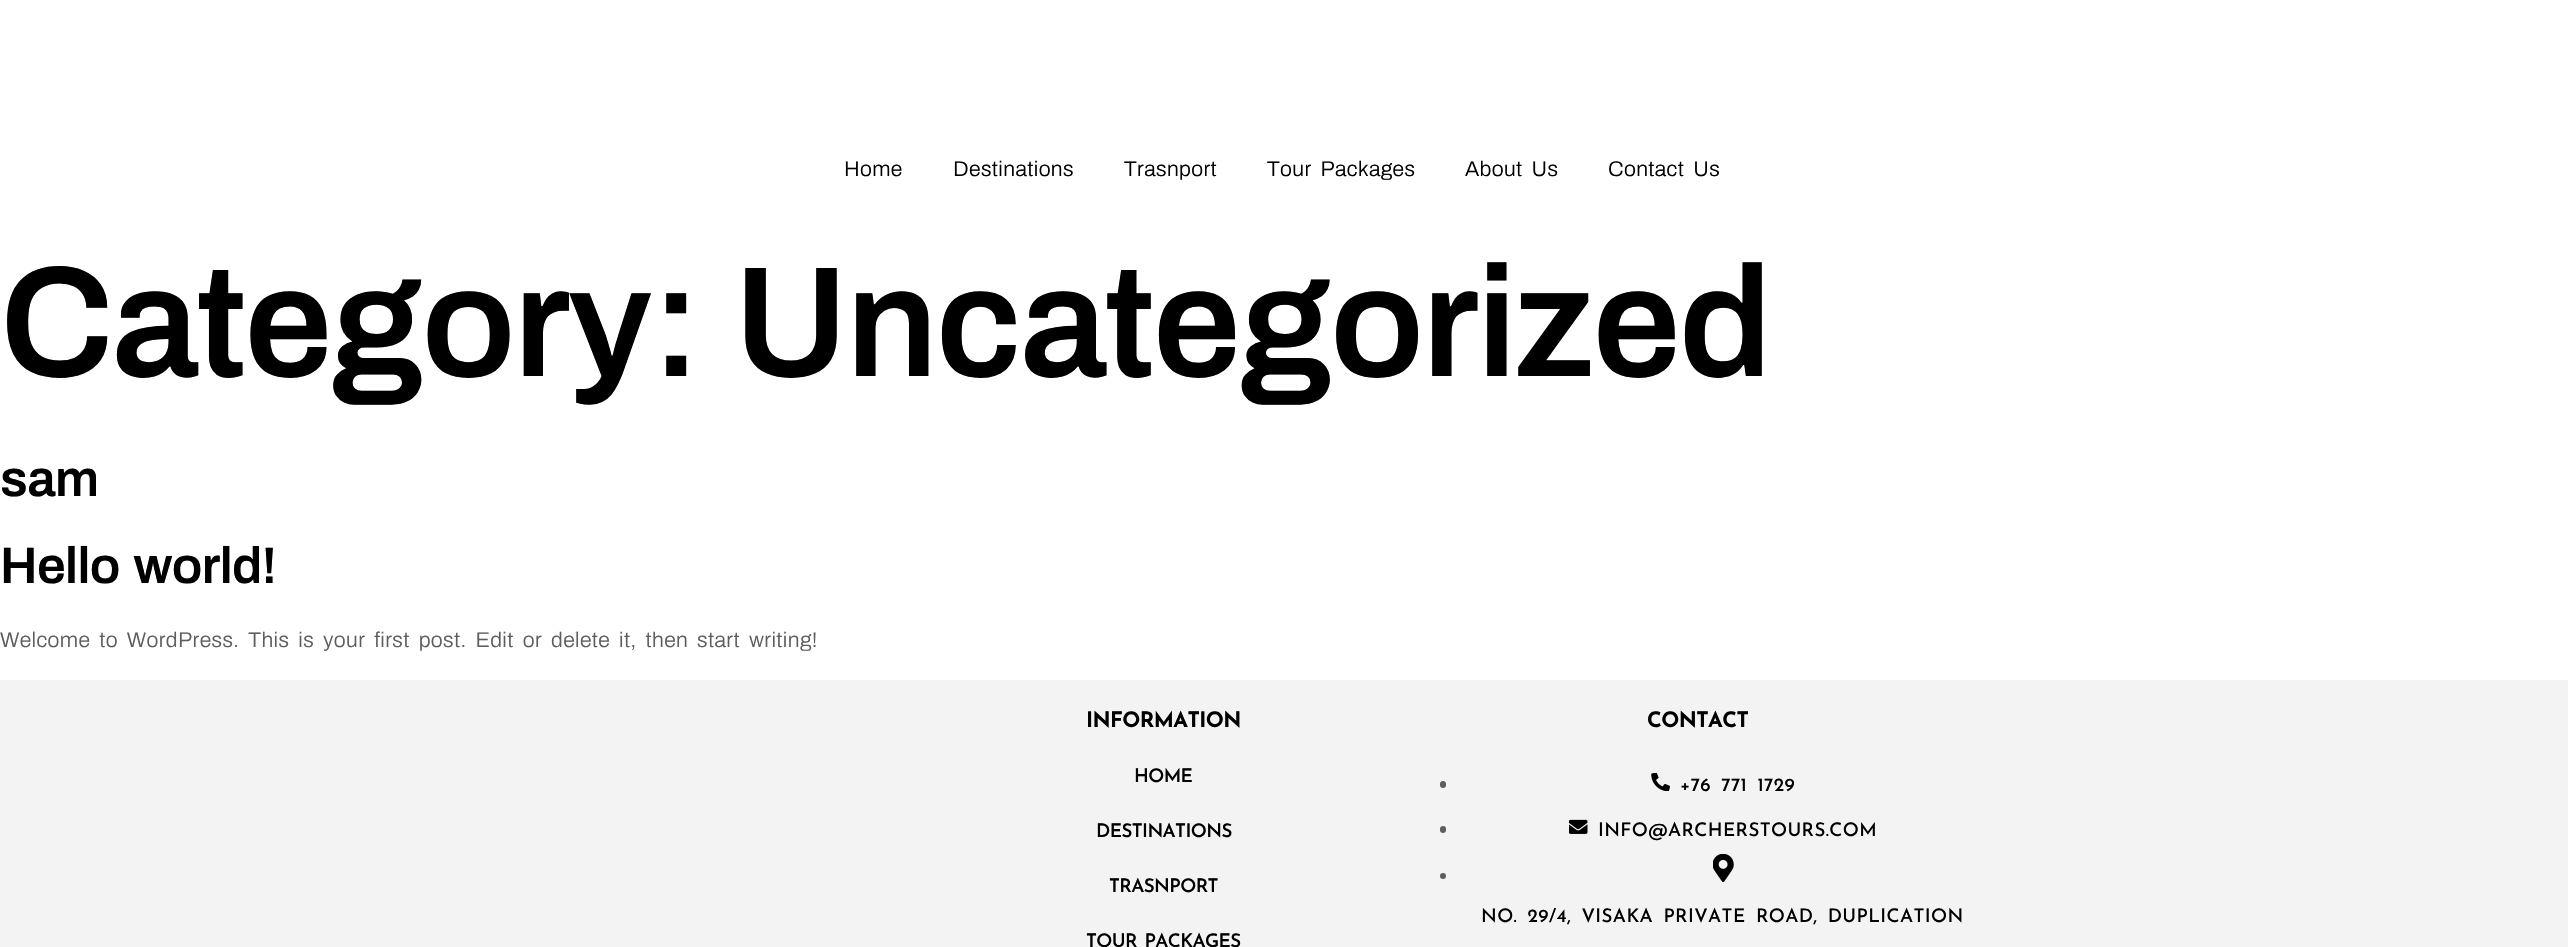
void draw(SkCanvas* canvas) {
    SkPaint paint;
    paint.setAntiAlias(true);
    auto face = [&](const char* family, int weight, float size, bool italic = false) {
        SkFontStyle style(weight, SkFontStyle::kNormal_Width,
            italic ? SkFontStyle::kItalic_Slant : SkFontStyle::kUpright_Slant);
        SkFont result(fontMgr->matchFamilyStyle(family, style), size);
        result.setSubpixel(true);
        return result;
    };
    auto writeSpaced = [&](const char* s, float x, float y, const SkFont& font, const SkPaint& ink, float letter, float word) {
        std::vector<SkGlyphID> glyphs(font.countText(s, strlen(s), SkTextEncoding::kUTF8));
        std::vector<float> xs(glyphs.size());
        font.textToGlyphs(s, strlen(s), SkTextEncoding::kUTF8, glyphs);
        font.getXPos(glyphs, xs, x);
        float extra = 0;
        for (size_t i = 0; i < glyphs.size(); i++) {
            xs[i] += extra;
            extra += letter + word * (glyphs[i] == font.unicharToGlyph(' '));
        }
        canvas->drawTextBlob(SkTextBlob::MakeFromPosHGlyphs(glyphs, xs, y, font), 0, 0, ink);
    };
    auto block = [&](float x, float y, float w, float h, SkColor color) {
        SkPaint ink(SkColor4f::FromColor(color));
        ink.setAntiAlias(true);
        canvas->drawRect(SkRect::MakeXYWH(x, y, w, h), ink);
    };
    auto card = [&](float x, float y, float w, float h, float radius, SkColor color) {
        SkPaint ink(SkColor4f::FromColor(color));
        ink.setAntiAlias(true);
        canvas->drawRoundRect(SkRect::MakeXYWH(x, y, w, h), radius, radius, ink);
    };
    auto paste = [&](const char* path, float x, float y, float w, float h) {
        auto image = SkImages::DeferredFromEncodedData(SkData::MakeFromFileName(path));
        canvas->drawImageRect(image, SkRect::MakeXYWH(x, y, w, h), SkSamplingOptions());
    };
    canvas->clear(SK_ColorWHITE);
    auto kFont1 = face("Archivo", 300, 21.25f);
    paint.setColor(SK_ColorBLACK);
    writeSpaced("Home", 844, 176, kFont1, paint, 0.38f, 0);
    writeSpaced("Destinations", 953, 176, kFont1, paint, 0.38f, 0);
    writeSpaced("Trasnport", 1124, 176, kFont1, paint, 0.38f, 0);
    writeSpaced("Tour Packages", 1267, 176, kFont1, paint, 0.38f, 4);
    writeSpaced("About Us", 1465, 176, kFont1, paint, 0.38f, 4);
    writeSpaced("Contact Us", 1608, 176, kFont1, paint, 0.38f, 4);
    auto kFont2 = face("Archivo", 600, 157.5f);
    writeSpaced("Category:", 0, 376, kFont2, paint, -2.1f, 0);
    writeSpaced("Uncategorized", 734, 376, kFont2, paint, -2.1f, 0);
    auto kFont3 = face("Archivo", 600, 51.25f);
    writeSpaced("sam", 0, 496, kFont3, paint, -0.6f, 0);
    writeSpaced("Hello world!", 0, 583, kFont3, paint, -0.6f, 4);
    paint.setColor(SkColorSetRGB(93, 93, 93));
    writeSpaced("Welcome to WordPress. This is your first post. Edit or delete it, then start writing!", 0, 647, kFont1, paint, 0.38f, 4);
    block(0, 680, 2568, 267, SkColorSetRGB(243, 243, 243));
    auto kFont4 = face("Josefin Sans", 700, 21.25f);
    paint.setColor(SK_ColorBLACK);
    writeSpaced("INFORMATION", 1086, 727, kFont4, paint, -0.6f, 0);
    auto kFont5 = face("Josefin Sans", 600, 18.75f);
    writeSpaced("HOME", 1134, 782, kFont5, paint, -0.6f, 0);
    writeSpaced("DESTINATIONS", 1096, 837, kFont5, paint, -0.6f, 0);
    writeSpaced("TRASNPORT", 1109, 892, kFont5, paint, -0.6f, 0);
    writeSpaced("TOUR PACKAGES", 1086, 947, kFont5, paint, -0.6f, 2);
    writeSpaced("CONTACT", 1647, 727, kFont4, paint, -0.6f, 0);
    card(1440, 781, 6, 7, 3, SkColorSetRGB(93, 93, 93));
    paste("pic1.png", 1651, 773, 19, 18);
    auto kFont6 = face("Josefin Sans", 500, 18.75f);
    writeSpaced("+76 771 1729", 1680, 791, kFont6, paint, 0.38f, 4);
    card(1440, 826, 6, 7, 3, SkColorSetRGB(93, 93, 93));
    paste("pic2.png", 1569, 819, 19, 15);
    writeSpaced("INFO@ARCHERSTOURS.COM", 1598, 836, kFont6, paint, 0.38f, 0);
    paint.setColor(SkColorSetRGB(93, 93, 93));
    canvas->drawCircle(1443, 876, 3, paint);
    paste("pic3.png", 1713, 854, 21, 28);
    paint.setColor(SK_ColorBLACK);
    writeSpaced("NO. 29/4, VISAKA PRIVATE ROAD, DUPLICATION", 1481, 922, kFont6, paint, 0.38f, 4);
}
